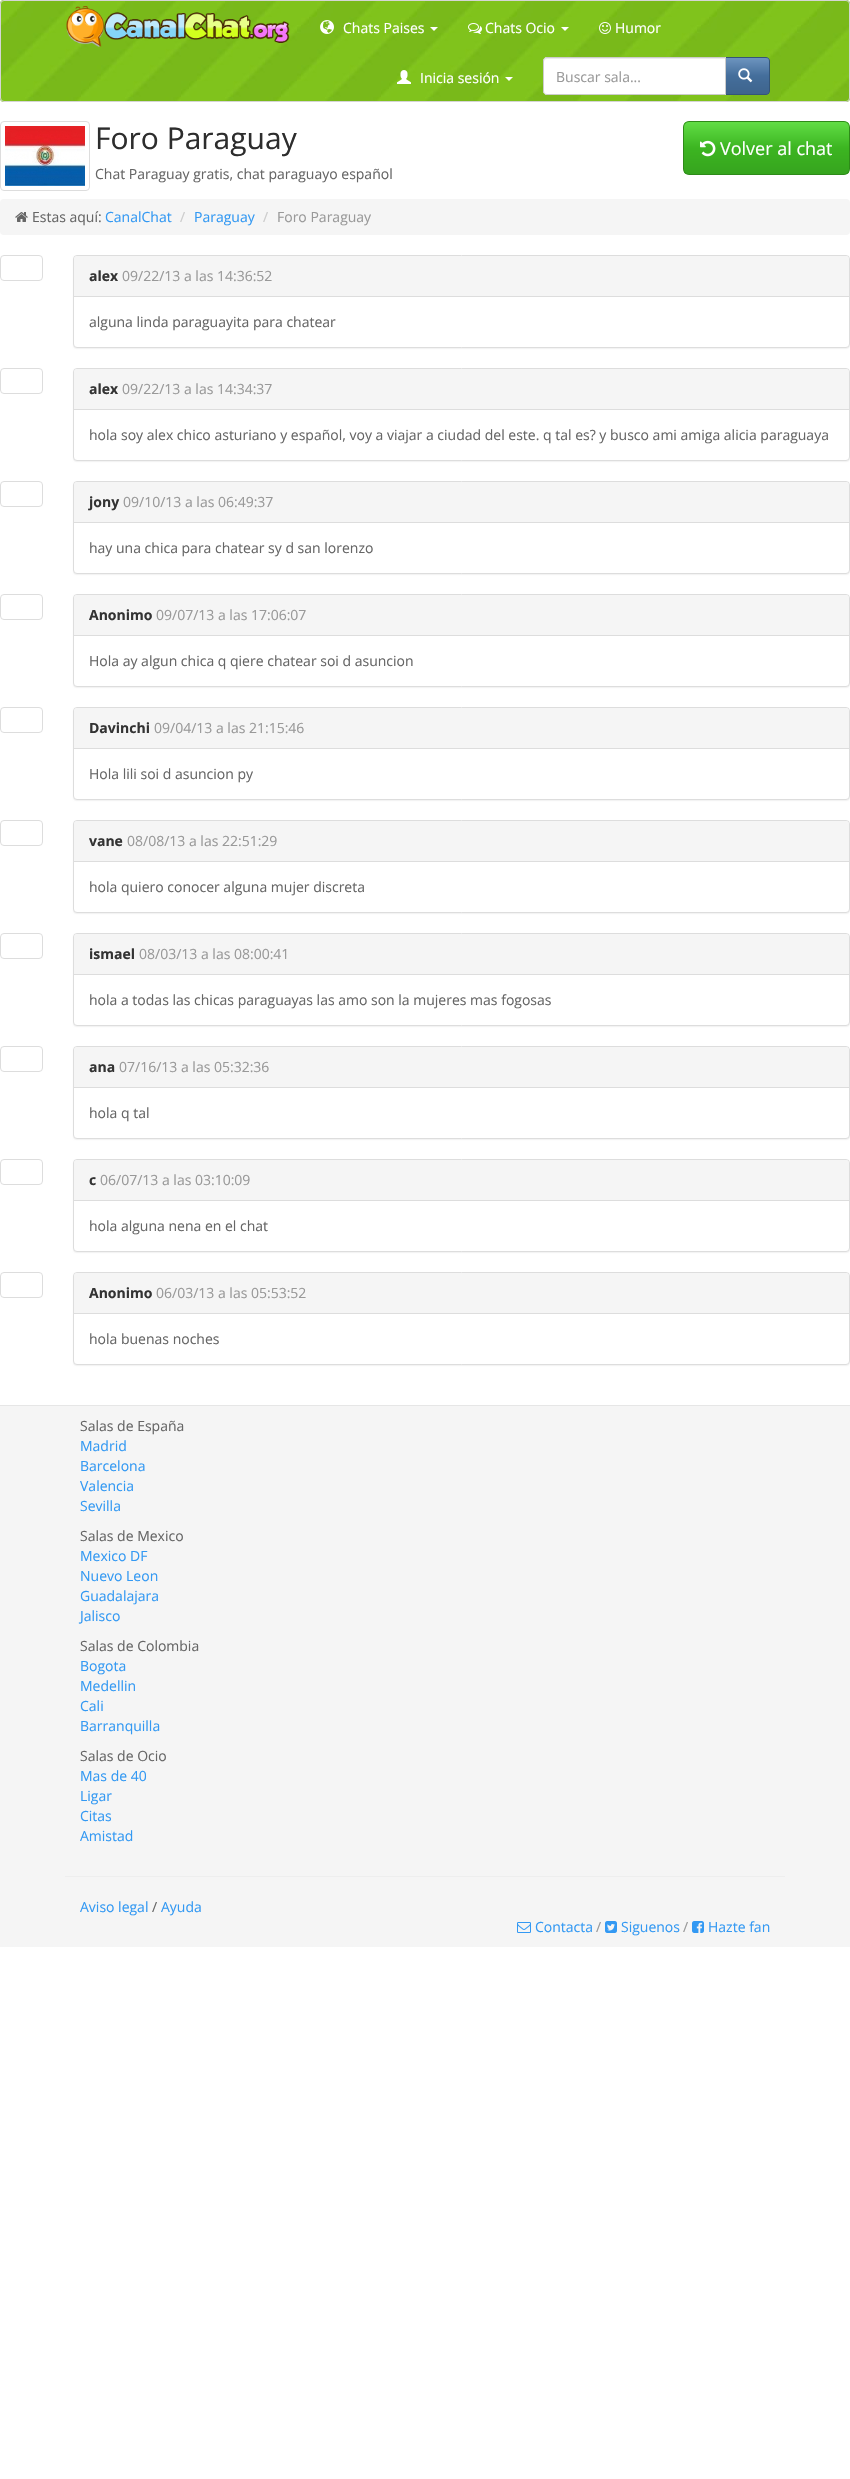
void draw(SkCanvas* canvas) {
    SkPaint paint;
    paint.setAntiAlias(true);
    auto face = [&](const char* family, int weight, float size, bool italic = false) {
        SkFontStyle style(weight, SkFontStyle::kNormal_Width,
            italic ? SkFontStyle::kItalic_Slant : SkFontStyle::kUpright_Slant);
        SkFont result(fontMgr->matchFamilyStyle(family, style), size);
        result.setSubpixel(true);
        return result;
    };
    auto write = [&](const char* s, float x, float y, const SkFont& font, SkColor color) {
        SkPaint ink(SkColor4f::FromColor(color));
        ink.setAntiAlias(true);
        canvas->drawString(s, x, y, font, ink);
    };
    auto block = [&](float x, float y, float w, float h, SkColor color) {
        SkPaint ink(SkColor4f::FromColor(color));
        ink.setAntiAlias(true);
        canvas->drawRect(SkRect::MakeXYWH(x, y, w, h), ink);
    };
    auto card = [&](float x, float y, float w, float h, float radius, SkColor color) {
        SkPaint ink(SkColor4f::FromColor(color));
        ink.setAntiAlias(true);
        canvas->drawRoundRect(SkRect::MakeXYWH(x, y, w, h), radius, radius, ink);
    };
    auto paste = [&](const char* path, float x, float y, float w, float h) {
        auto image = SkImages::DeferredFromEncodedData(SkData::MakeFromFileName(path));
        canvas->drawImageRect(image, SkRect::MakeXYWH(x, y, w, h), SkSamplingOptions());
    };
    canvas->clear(SK_ColorWHITE);
    paste("pic1.png", 0, 0, 850, 102);
    paint.setStyle(SkPaint::kStroke_Style);
    paint.setStrokeWidth(1);
    paint.setColor(SkColorSetRGB(213, 213, 213));
    canvas->drawRoundRect(SkRect::MakeXYWH(0.5f, 0.5f, 849, 101), 3.5f, 3.5f, paint);
    paste("pic2.png", 66, 6, 224, 41);
    paste("pic3.png", 320, 20, 14, 14);
    auto kFont1 = face("Open Sans", 400, 14);
    write("Chats Paises", 343, 33, kFont1, SK_ColorWHITE);
    paint.setStyle(SkPaint::kFill_Style);
    paint.setColor(SK_ColorWHITE);
    canvas->drawPath(SkPathBuilder().moveTo(430, 27).lineTo(438, 27).lineTo(434, 31).close().detach(), paint);
    paste("pic4.png", 468, 23, 14, 11);
    write("Chats Ocio", 485, 33, kFont1, SK_ColorWHITE);
    canvas->drawPath(SkPathBuilder().moveTo(561, 27).lineTo(569, 27).lineTo(565, 31).close().detach(), paint);
    paste("pic5.png", 599, 22, 12, 12);
    write("Humor", 615, 33, kFont1, SK_ColorWHITE);
    paste("pic6.png", 397, 70, 14, 14);
    write("Inicia sesión", 420, 83, kFont1, SK_ColorWHITE);
    canvas->drawPath(SkPathBuilder().moveTo(505, 77).lineTo(513, 77).lineTo(509, 81).close().detach(), paint);
    {
        const SkColor colors[] = {SkColorSetRGB(109, 148, 191), SkColorSetRGB(68, 110, 155), SkColorSetRGB(62, 100, 141)};
        const float stops[] = {0, 0.5f, 1};
        const SkPoint ends[] = {{748, 58}, {748, 94}};
        paint.setShader(SkGradientShader::MakeLinear(ends, colors, stops, 3, SkTileMode::kClamp));
        paint.setAlpha(255);
    }
    canvas->drawRect(SkRect::MakeXYWH(726, 58, 43, 36), paint);
    paint.setStyle(SkPaint::kStroke_Style);
    paint.setShader(nullptr);
    paint.setColor(SkColorSetRGB(52, 85, 120));
    canvas->drawPath(SkPathBuilder().moveTo(725.5f, 57.5f).lineTo(766, 57.5f).cubicTo(768, 57.5f, 769.5f, 59, 769.5f, 61).lineTo(769.5f, 91).cubicTo(769.5f, 93, 768, 94.5f, 766, 94.5f).lineTo(725.5f, 94.5f).close().detach(), paint);
    paint.setStyle(SkPaint::kFill_Style);
    paint.setColor(SK_ColorWHITE);
    canvas->drawPath(SkPathBuilder().moveTo(547, 57).lineTo(726, 57).lineTo(726, 95).lineTo(547, 95).cubicTo(545, 95, 543, 93, 543, 91).lineTo(543, 61).cubicTo(543, 59, 545, 57, 547, 57).close().detach(), paint);
    paint.setColor(SkColorSetRGB(236, 236, 236));
    canvas->drawPath(SkPathBuilder().moveTo(547, 59).lineTo(725, 59).lineTo(725, 58).lineTo(546, 58).cubicTo(544, 59, 544, 60, 544, 62).cubicTo(544, 60, 545, 59, 547, 59).close().detach(), paint);
    paint.setStyle(SkPaint::kStroke_Style);
    paint.setColor(SkColorSetRGB(204, 204, 204));
    canvas->drawPath(SkPathBuilder().moveTo(547, 57.5f).lineTo(725.5f, 57.5f).lineTo(725.5f, 94.5f).lineTo(547, 94.5f).cubicTo(545, 94.5f, 543.5f, 93, 543.5f, 91).lineTo(543.5f, 61).cubicTo(543.5f, 59, 545, 57.5f, 547, 57.5f).close().detach(), paint);
    write("Buscar sala...", 556, 82, kFont1, SkColorSetRGB(153, 153, 153));
    paste("pic7.png", 738, 68, 15, 15);
    paint.setColor(SkColorSetRGB(221, 221, 221));
    canvas->drawRoundRect(SkRect::MakeXYWH(0.5f, 121.5f, 89, 69), 3.5f, 3.5f, paint);
    paste("pic8.png", 5, 126, 80, 60);
    auto kFont2 = face("Open Sans", 400, 30);
    write("Foro Paraguay", 95, 149, kFont2, SkColorSetRGB(45, 45, 45));
    canvas->save();
    canvas->clipPath(SkPathBuilder().moveTo(689, 121).lineTo(844, 121).cubicTo(847.5f, 121, 850, 123.5f, 850, 127).lineTo(850, 169).cubicTo(850, 172.5f, 847.5f, 175, 844, 175).lineTo(689, 175).cubicTo(685.5f, 175, 683, 172.5f, 683, 169).lineTo(683, 127).cubicTo(683, 123.5f, 685.5f, 121, 689, 121).close().detach(), true);
    paint.setStyle(SkPaint::kFill_Style);
    {
        const SkColor colors[] = {SkColorSetRGB(97, 221, 69), SkColorSetRGB(60, 181, 33), SkColorSetRGB(54, 164, 30)};
        const float stops[] = {0, 0.5f, 1};
        const SkPoint ends[] = {{767, 122}, {767, 174}};
        paint.setShader(SkGradientShader::MakeLinear(ends, colors, stops, 3, SkTileMode::kClamp));
        paint.setAlpha(255);
    }
    canvas->drawRect(SkRect::MakeXYWH(684, 122, 165, 52), paint);
    canvas->restore();
    paint.setStyle(SkPaint::kStroke_Style);
    paint.setShader(nullptr);
    paint.setColor(SkColorSetRGB(46, 138, 25));
    canvas->drawRoundRect(SkRect::MakeXYWH(683.5f, 121.5f, 166, 53), 5.5f, 5.5f, paint);
    paste("pic9.png", 700, 140, 16, 17);
    auto kFont3 = face("Open Sans", 400, 18);
    write("Volver al chat", 720, 155, kFont3, SK_ColorWHITE);
    write("Chat Paraguay gratis, chat paraguayo español", 95, 179, kFont1, SkColorSetRGB(102, 102, 102));
    card(0, 199, 850, 36, 4, SkColorSetRGB(245, 245, 245));
    paste("pic10.png", 15, 212, 13, 10);
    write("Estas aquí:", 32, 222, kFont1, SkColorSetRGB(102, 102, 102));
    write("CanalChat", 105, 222, kFont1, SkColorSetRGB(51, 153, 243));
    write("/", 180, 222, kFont1, SkColorSetRGB(204, 204, 204));
    write("Paraguay", 194, 222, kFont1, SkColorSetRGB(51, 153, 243));
    write("/", 263, 222, kFont1, SkColorSetRGB(204, 204, 204));
    write("Foro Paraguay", 277, 222, kFont1, SkColorSetRGB(153, 153, 153));
    paint.setColor(SkColorSetRGB(221, 221, 221));
    canvas->drawRoundRect(SkRect::MakeXYWH(0.5f, 255.5f, 42, 25), 3.5f, 3.5f, paint);
    paint.setStyle(SkPaint::kFill_Style);
    paint.setColor(SkColorSetARGB(13, 0, 0, 0));
    paint.setMaskFilter(SkMaskFilter::MakeBlur(kNormal_SkBlurStyle, 0.5f));
    canvas->drawRoundRect(SkRect::MakeXYWH(73, 256, 777, 93), 4, 4, paint);
    paint.setMaskFilter(nullptr);
    paint.setColor(SK_ColorWHITE);
    canvas->drawRoundRect(SkRect::MakeXYWH(73.5f, 255.5f, 776, 92), 3.5f, 3.5f, paint);
    paint.setStyle(SkPaint::kStroke_Style);
    paint.setColor(SkColorSetRGB(221, 221, 221));
    canvas->drawRoundRect(SkRect::MakeXYWH(73.5f, 255.5f, 776, 92), 3.5f, 3.5f, paint);
    paint.setStyle(SkPaint::kFill_Style);
    paint.setColor(SkColorSetRGB(245, 245, 245));
    canvas->drawPath(SkPathBuilder().moveTo(77, 256).lineTo(846, 256).cubicTo(847.5f, 256, 849, 257.5f, 849, 259).lineTo(849, 297).lineTo(74, 297).lineTo(74, 259).cubicTo(74, 257.5f, 75.5f, 256, 77, 256).close().detach(), paint);
    block(74, 296, 775, 1, SkColorSetRGB(221, 221, 221));
    auto kFont4 = face("Open Sans", 700, 14);
    write("alex", 89, 281, kFont4, SkColorSetRGB(51, 51, 51));
    write("09/22/13 a las 14:36:52", 122, 281, kFont1, SkColorSetRGB(153, 153, 153));
    write("alguna linda paraguayita para chatear", 89, 327, kFont1, SkColorSetRGB(102, 102, 102));
    paint.setStyle(SkPaint::kStroke_Style);
    paint.setColor(SkColorSetRGB(221, 221, 221));
    canvas->drawRoundRect(SkRect::MakeXYWH(0.5f, 368.5f, 42, 25), 3.5f, 3.5f, paint);
    paint.setStyle(SkPaint::kFill_Style);
    paint.setColor(SkColorSetARGB(13, 0, 0, 0));
    paint.setMaskFilter(SkMaskFilter::MakeBlur(kNormal_SkBlurStyle, 0.5f));
    canvas->drawRoundRect(SkRect::MakeXYWH(73, 369, 777, 93), 4, 4, paint);
    paint.setMaskFilter(nullptr);
    paint.setColor(SK_ColorWHITE);
    canvas->drawRoundRect(SkRect::MakeXYWH(73.5f, 368.5f, 776, 92), 3.5f, 3.5f, paint);
    paint.setStyle(SkPaint::kStroke_Style);
    paint.setColor(SkColorSetRGB(221, 221, 221));
    canvas->drawRoundRect(SkRect::MakeXYWH(73.5f, 368.5f, 776, 92), 3.5f, 3.5f, paint);
    paint.setStyle(SkPaint::kFill_Style);
    paint.setColor(SkColorSetRGB(245, 245, 245));
    canvas->drawPath(SkPathBuilder().moveTo(77, 369).lineTo(846, 369).cubicTo(847.5f, 369, 849, 370.5f, 849, 372).lineTo(849, 410).lineTo(74, 410).lineTo(74, 372).cubicTo(74, 370.5f, 75.5f, 369, 77, 369).close().detach(), paint);
    block(74, 409, 775, 1, SkColorSetRGB(221, 221, 221));
    write("alex", 89, 394, kFont4, SkColorSetRGB(51, 51, 51));
    write("09/22/13 a las 14:34:37", 122, 394, kFont1, SkColorSetRGB(153, 153, 153));
    write("hola soy alex chico asturiano y español, voy a viajar a ciudad del este. q tal es? y busco ami amiga alicia paraguaya", 89, 440, kFont1, SkColorSetRGB(102, 102, 102));
    paint.setStyle(SkPaint::kStroke_Style);
    paint.setColor(SkColorSetRGB(221, 221, 221));
    canvas->drawRoundRect(SkRect::MakeXYWH(0.5f, 481.5f, 42, 25), 3.5f, 3.5f, paint);
    paint.setStyle(SkPaint::kFill_Style);
    paint.setColor(SkColorSetARGB(13, 0, 0, 0));
    paint.setMaskFilter(SkMaskFilter::MakeBlur(kNormal_SkBlurStyle, 0.5f));
    canvas->drawRoundRect(SkRect::MakeXYWH(73, 482, 777, 93), 4, 4, paint);
    paint.setMaskFilter(nullptr);
    paint.setColor(SK_ColorWHITE);
    canvas->drawRoundRect(SkRect::MakeXYWH(73.5f, 481.5f, 776, 92), 3.5f, 3.5f, paint);
    paint.setStyle(SkPaint::kStroke_Style);
    paint.setColor(SkColorSetRGB(221, 221, 221));
    canvas->drawRoundRect(SkRect::MakeXYWH(73.5f, 481.5f, 776, 92), 3.5f, 3.5f, paint);
    paint.setStyle(SkPaint::kFill_Style);
    paint.setColor(SkColorSetRGB(245, 245, 245));
    canvas->drawPath(SkPathBuilder().moveTo(77, 482).lineTo(846, 482).cubicTo(847.5f, 482, 849, 483.5f, 849, 485).lineTo(849, 523).lineTo(74, 523).lineTo(74, 485).cubicTo(74, 483.5f, 75.5f, 482, 77, 482).close().detach(), paint);
    block(74, 522, 775, 1, SkColorSetRGB(221, 221, 221));
    write("jony", 89, 507, kFont4, SkColorSetRGB(51, 51, 51));
    write("09/10/13 a las 06:49:37", 123, 507, kFont1, SkColorSetRGB(153, 153, 153));
    write("hay una chica para chatear sy d san lorenzo", 89, 553, kFont1, SkColorSetRGB(102, 102, 102));
    paint.setStyle(SkPaint::kStroke_Style);
    paint.setColor(SkColorSetRGB(221, 221, 221));
    canvas->drawRoundRect(SkRect::MakeXYWH(0.5f, 594.5f, 42, 25), 3.5f, 3.5f, paint);
    paint.setStyle(SkPaint::kFill_Style);
    paint.setColor(SkColorSetARGB(13, 0, 0, 0));
    paint.setMaskFilter(SkMaskFilter::MakeBlur(kNormal_SkBlurStyle, 0.5f));
    canvas->drawRoundRect(SkRect::MakeXYWH(73, 595, 777, 93), 4, 4, paint);
    paint.setMaskFilter(nullptr);
    paint.setColor(SK_ColorWHITE);
    canvas->drawRoundRect(SkRect::MakeXYWH(73.5f, 594.5f, 776, 92), 3.5f, 3.5f, paint);
    paint.setStyle(SkPaint::kStroke_Style);
    paint.setColor(SkColorSetRGB(221, 221, 221));
    canvas->drawRoundRect(SkRect::MakeXYWH(73.5f, 594.5f, 776, 92), 3.5f, 3.5f, paint);
    paint.setStyle(SkPaint::kFill_Style);
    paint.setColor(SkColorSetRGB(245, 245, 245));
    canvas->drawPath(SkPathBuilder().moveTo(77, 595).lineTo(846, 595).cubicTo(847.5f, 595, 849, 596.5f, 849, 598).lineTo(849, 636).lineTo(74, 636).lineTo(74, 598).cubicTo(74, 596.5f, 75.5f, 595, 77, 595).close().detach(), paint);
    block(74, 635, 775, 1, SkColorSetRGB(221, 221, 221));
    write("Anonimo", 89, 620, kFont4, SkColorSetRGB(51, 51, 51));
    write("09/07/13 a las 17:06:07", 156, 620, kFont1, SkColorSetRGB(153, 153, 153));
    write("Hola ay algun chica q qiere chatear soi d asuncion", 89, 666, kFont1, SkColorSetRGB(102, 102, 102));
    paint.setStyle(SkPaint::kStroke_Style);
    paint.setColor(SkColorSetRGB(221, 221, 221));
    canvas->drawRoundRect(SkRect::MakeXYWH(0.5f, 707.5f, 42, 25), 3.5f, 3.5f, paint);
    paint.setStyle(SkPaint::kFill_Style);
    paint.setColor(SkColorSetARGB(13, 0, 0, 0));
    paint.setMaskFilter(SkMaskFilter::MakeBlur(kNormal_SkBlurStyle, 0.5f));
    canvas->drawRoundRect(SkRect::MakeXYWH(73, 708, 777, 93), 4, 4, paint);
    paint.setMaskFilter(nullptr);
    paint.setColor(SK_ColorWHITE);
    canvas->drawRoundRect(SkRect::MakeXYWH(73.5f, 707.5f, 776, 92), 3.5f, 3.5f, paint);
    paint.setStyle(SkPaint::kStroke_Style);
    paint.setColor(SkColorSetRGB(221, 221, 221));
    canvas->drawRoundRect(SkRect::MakeXYWH(73.5f, 707.5f, 776, 92), 3.5f, 3.5f, paint);
    paint.setStyle(SkPaint::kFill_Style);
    paint.setColor(SkColorSetRGB(245, 245, 245));
    canvas->drawPath(SkPathBuilder().moveTo(77, 708).lineTo(846, 708).cubicTo(847.5f, 708, 849, 709.5f, 849, 711).lineTo(849, 749).lineTo(74, 749).lineTo(74, 711).cubicTo(74, 709.5f, 75.5f, 708, 77, 708).close().detach(), paint);
    block(74, 748, 775, 1, SkColorSetRGB(221, 221, 221));
    write("Davinchi", 89, 733, kFont4, SkColorSetRGB(51, 51, 51));
    write("09/04/13 a las 21:15:46", 154, 733, kFont1, SkColorSetRGB(153, 153, 153));
    write("Hola lili soi d asuncion py", 89, 779, kFont1, SkColorSetRGB(102, 102, 102));
    paint.setStyle(SkPaint::kStroke_Style);
    paint.setColor(SkColorSetRGB(221, 221, 221));
    canvas->drawRoundRect(SkRect::MakeXYWH(0.5f, 820.5f, 42, 25), 3.5f, 3.5f, paint);
    paint.setStyle(SkPaint::kFill_Style);
    paint.setColor(SkColorSetARGB(13, 0, 0, 0));
    paint.setMaskFilter(SkMaskFilter::MakeBlur(kNormal_SkBlurStyle, 0.5f));
    canvas->drawRoundRect(SkRect::MakeXYWH(73, 821, 777, 93), 4, 4, paint);
    paint.setMaskFilter(nullptr);
    paint.setColor(SK_ColorWHITE);
    canvas->drawRoundRect(SkRect::MakeXYWH(73.5f, 820.5f, 776, 92), 3.5f, 3.5f, paint);
    paint.setStyle(SkPaint::kStroke_Style);
    paint.setColor(SkColorSetRGB(221, 221, 221));
    canvas->drawRoundRect(SkRect::MakeXYWH(73.5f, 820.5f, 776, 92), 3.5f, 3.5f, paint);
    paint.setStyle(SkPaint::kFill_Style);
    paint.setColor(SkColorSetRGB(245, 245, 245));
    canvas->drawPath(SkPathBuilder().moveTo(77, 821).lineTo(846, 821).cubicTo(847.5f, 821, 849, 822.5f, 849, 824).lineTo(849, 862).lineTo(74, 862).lineTo(74, 824).cubicTo(74, 822.5f, 75.5f, 821, 77, 821).close().detach(), paint);
    block(74, 861, 775, 1, SkColorSetRGB(221, 221, 221));
    write("vane", 89, 846, kFont4, SkColorSetRGB(51, 51, 51));
    write("08/08/13 a las 22:51:29", 127, 846, kFont1, SkColorSetRGB(153, 153, 153));
    write("hola quiero conocer alguna mujer discreta", 89, 892, kFont1, SkColorSetRGB(102, 102, 102));
    paint.setStyle(SkPaint::kStroke_Style);
    paint.setColor(SkColorSetRGB(221, 221, 221));
    canvas->drawRoundRect(SkRect::MakeXYWH(0.5f, 933.5f, 42, 25), 3.5f, 3.5f, paint);
    paint.setStyle(SkPaint::kFill_Style);
    paint.setColor(SkColorSetARGB(13, 0, 0, 0));
    paint.setMaskFilter(SkMaskFilter::MakeBlur(kNormal_SkBlurStyle, 0.5f));
    canvas->drawRoundRect(SkRect::MakeXYWH(73, 934, 777, 93), 4, 4, paint);
    paint.setMaskFilter(nullptr);
    paint.setColor(SK_ColorWHITE);
    canvas->drawRoundRect(SkRect::MakeXYWH(73.5f, 933.5f, 776, 92), 3.5f, 3.5f, paint);
    paint.setStyle(SkPaint::kStroke_Style);
    paint.setColor(SkColorSetRGB(221, 221, 221));
    canvas->drawRoundRect(SkRect::MakeXYWH(73.5f, 933.5f, 776, 92), 3.5f, 3.5f, paint);
    paint.setStyle(SkPaint::kFill_Style);
    paint.setColor(SkColorSetRGB(245, 245, 245));
    canvas->drawPath(SkPathBuilder().moveTo(77, 934).lineTo(846, 934).cubicTo(847.5f, 934, 849, 935.5f, 849, 937).lineTo(849, 975).lineTo(74, 975).lineTo(74, 937).cubicTo(74, 935.5f, 75.5f, 934, 77, 934).close().detach(), paint);
    block(74, 974, 775, 1, SkColorSetRGB(221, 221, 221));
    write("ismael", 89, 959, kFont4, SkColorSetRGB(51, 51, 51));
    write("08/03/13 a las 08:00:41", 139, 959, kFont1, SkColorSetRGB(153, 153, 153));
    write("hola a todas las chicas paraguayas las amo son la mujeres mas fogosas", 89, 1005, kFont1, SkColorSetRGB(102, 102, 102));
    paint.setStyle(SkPaint::kStroke_Style);
    paint.setColor(SkColorSetRGB(221, 221, 221));
    canvas->drawRoundRect(SkRect::MakeXYWH(0.5f, 1046.5f, 42, 25), 3.5f, 3.5f, paint);
    paint.setStyle(SkPaint::kFill_Style);
    paint.setColor(SkColorSetARGB(13, 0, 0, 0));
    paint.setMaskFilter(SkMaskFilter::MakeBlur(kNormal_SkBlurStyle, 0.5f));
    canvas->drawRoundRect(SkRect::MakeXYWH(73, 1047, 777, 93), 4, 4, paint);
    paint.setMaskFilter(nullptr);
    paint.setColor(SK_ColorWHITE);
    canvas->drawRoundRect(SkRect::MakeXYWH(73.5f, 1046.5f, 776, 92), 3.5f, 3.5f, paint);
    paint.setStyle(SkPaint::kStroke_Style);
    paint.setColor(SkColorSetRGB(221, 221, 221));
    canvas->drawRoundRect(SkRect::MakeXYWH(73.5f, 1046.5f, 776, 92), 3.5f, 3.5f, paint);
    paint.setStyle(SkPaint::kFill_Style);
    paint.setColor(SkColorSetRGB(245, 245, 245));
    canvas->drawPath(SkPathBuilder().moveTo(77, 1047).lineTo(846, 1047).cubicTo(847.5f, 1047, 849, 1048.5f, 849, 1050).lineTo(849, 1088).lineTo(74, 1088).lineTo(74, 1050).cubicTo(74, 1048.5f, 75.5f, 1047, 77, 1047).close().detach(), paint);
    block(74, 1087, 775, 1, SkColorSetRGB(221, 221, 221));
    write("ana", 89, 1072, kFont4, SkColorSetRGB(51, 51, 51));
    write("07/16/13 a las 05:32:36", 119, 1072, kFont1, SkColorSetRGB(153, 153, 153));
    write("hola q tal", 89, 1118, kFont1, SkColorSetRGB(102, 102, 102));
    paint.setStyle(SkPaint::kStroke_Style);
    paint.setColor(SkColorSetRGB(221, 221, 221));
    canvas->drawRoundRect(SkRect::MakeXYWH(0.5f, 1159.5f, 42, 25), 3.5f, 3.5f, paint);
    paint.setStyle(SkPaint::kFill_Style);
    paint.setColor(SkColorSetARGB(13, 0, 0, 0));
    paint.setMaskFilter(SkMaskFilter::MakeBlur(kNormal_SkBlurStyle, 0.5f));
    canvas->drawRoundRect(SkRect::MakeXYWH(73, 1160, 777, 93), 4, 4, paint);
    paint.setMaskFilter(nullptr);
    paint.setColor(SK_ColorWHITE);
    canvas->drawRoundRect(SkRect::MakeXYWH(73.5f, 1159.5f, 776, 92), 3.5f, 3.5f, paint);
    paint.setStyle(SkPaint::kStroke_Style);
    paint.setColor(SkColorSetRGB(221, 221, 221));
    canvas->drawRoundRect(SkRect::MakeXYWH(73.5f, 1159.5f, 776, 92), 3.5f, 3.5f, paint);
    paint.setStyle(SkPaint::kFill_Style);
    paint.setColor(SkColorSetRGB(245, 245, 245));
    canvas->drawPath(SkPathBuilder().moveTo(77, 1160).lineTo(846, 1160).cubicTo(847.5f, 1160, 849, 1161.5f, 849, 1163).lineTo(849, 1201).lineTo(74, 1201).lineTo(74, 1163).cubicTo(74, 1161.5f, 75.5f, 1160, 77, 1160).close().detach(), paint);
    block(74, 1200, 775, 1, SkColorSetRGB(221, 221, 221));
    write("c", 89, 1185, kFont4, SkColorSetRGB(51, 51, 51));
    write("06/07/13 a las 03:10:09", 100, 1185, kFont1, SkColorSetRGB(153, 153, 153));
    write("hola alguna nena en el chat", 89, 1231, kFont1, SkColorSetRGB(102, 102, 102));
    paint.setStyle(SkPaint::kStroke_Style);
    paint.setColor(SkColorSetRGB(221, 221, 221));
    canvas->drawRoundRect(SkRect::MakeXYWH(0.5f, 1272.5f, 42, 25), 3.5f, 3.5f, paint);
    paint.setStyle(SkPaint::kFill_Style);
    paint.setColor(SkColorSetARGB(13, 0, 0, 0));
    paint.setMaskFilter(SkMaskFilter::MakeBlur(kNormal_SkBlurStyle, 0.5f));
    canvas->drawRoundRect(SkRect::MakeXYWH(73, 1273, 777, 93), 4, 4, paint);
    paint.setMaskFilter(nullptr);
    paint.setColor(SK_ColorWHITE);
    canvas->drawRoundRect(SkRect::MakeXYWH(73.5f, 1272.5f, 776, 92), 3.5f, 3.5f, paint);
    paint.setStyle(SkPaint::kStroke_Style);
    paint.setColor(SkColorSetRGB(221, 221, 221));
    canvas->drawRoundRect(SkRect::MakeXYWH(73.5f, 1272.5f, 776, 92), 3.5f, 3.5f, paint);
    paint.setStyle(SkPaint::kFill_Style);
    paint.setColor(SkColorSetRGB(245, 245, 245));
    canvas->drawPath(SkPathBuilder().moveTo(77, 1273).lineTo(846, 1273).cubicTo(847.5f, 1273, 849, 1274.5f, 849, 1276).lineTo(849, 1314).lineTo(74, 1314).lineTo(74, 1276).cubicTo(74, 1274.5f, 75.5f, 1273, 77, 1273).close().detach(), paint);
    block(74, 1313, 775, 1, SkColorSetRGB(221, 221, 221));
    write("Anonimo", 89, 1298, kFont4, SkColorSetRGB(51, 51, 51));
    write("06/03/13 a las 05:53:52", 156, 1298, kFont1, SkColorSetRGB(153, 153, 153));
    write("hola buenas noches", 89, 1344, kFont1, SkColorSetRGB(102, 102, 102));
    block(0, 1406, 850, 541, SkColorSetRGB(245, 245, 245));
    block(0, 1405, 850, 1, SkColorSetRGB(230, 230, 230));
    write("Salas de España", 80, 1431, kFont1, SkColorSetRGB(102, 102, 102));
    write("Madrid", 80, 1451, kFont1, SkColorSetRGB(51, 153, 243));
    write("Barcelona", 80, 1471, kFont1, SkColorSetRGB(51, 153, 243));
    write("Valencia", 80, 1491, kFont1, SkColorSetRGB(51, 153, 243));
    write("Sevilla", 80, 1511, kFont1, SkColorSetRGB(51, 153, 243));
    write("Salas de Mexico", 80, 1541, kFont1, SkColorSetRGB(102, 102, 102));
    write("Mexico DF", 80, 1561, kFont1, SkColorSetRGB(51, 153, 243));
    write("Nuevo Leon", 80, 1581, kFont1, SkColorSetRGB(51, 153, 243));
    write("Guadalajara", 80, 1601, kFont1, SkColorSetRGB(51, 153, 243));
    write("Jalisco", 80, 1621, kFont1, SkColorSetRGB(51, 153, 243));
    write("Salas de Colombia", 80, 1651, kFont1, SkColorSetRGB(102, 102, 102));
    write("Bogota", 80, 1671, kFont1, SkColorSetRGB(51, 153, 243));
    write("Medellin", 80, 1691, kFont1, SkColorSetRGB(51, 153, 243));
    write("Cali", 80, 1711, kFont1, SkColorSetRGB(51, 153, 243));
    write("Barranquilla", 80, 1731, kFont1, SkColorSetRGB(51, 153, 243));
    write("Salas de Ocio", 80, 1761, kFont1, SkColorSetRGB(102, 102, 102));
    write("Mas de 40", 80, 1781, kFont1, SkColorSetRGB(51, 153, 243));
    write("Ligar", 80, 1801, kFont1, SkColorSetRGB(51, 153, 243));
    write("Citas", 80, 1821, kFont1, SkColorSetRGB(51, 153, 243));
    write("Amistad", 80, 1841, kFont1, SkColorSetRGB(51, 153, 243));
    block(65, 1876, 720, 1, SkColorSetRGB(238, 238, 238));
    write("Aviso legal", 80, 1912, kFont1, SkColorSetRGB(51, 153, 243));
    write("/", 152, 1912, kFont1, SkColorSetRGB(102, 102, 102));
    write("Ayuda", 161, 1912, kFont1, SkColorSetRGB(51, 153, 243));
    paste("pic11.png", 517, 1922, 14, 11);
    write("Contacta", 535, 1932, kFont1, SkColorSetRGB(51, 153, 243));
    write("/", 596, 1932, kFont1, SkColorSetRGB(153, 153, 153));
    paste("pic12.png", 605, 1921, 12, 12);
    write("Siguenos", 621, 1932, kFont1, SkColorSetRGB(51, 153, 243));
    write("/", 683, 1932, kFont1, SkColorSetRGB(153, 153, 153));
    paste("pic13.png", 692, 1921, 12, 12);
    write("Hazte fan", 708, 1932, kFont1, SkColorSetRGB(51, 153, 243));
}
